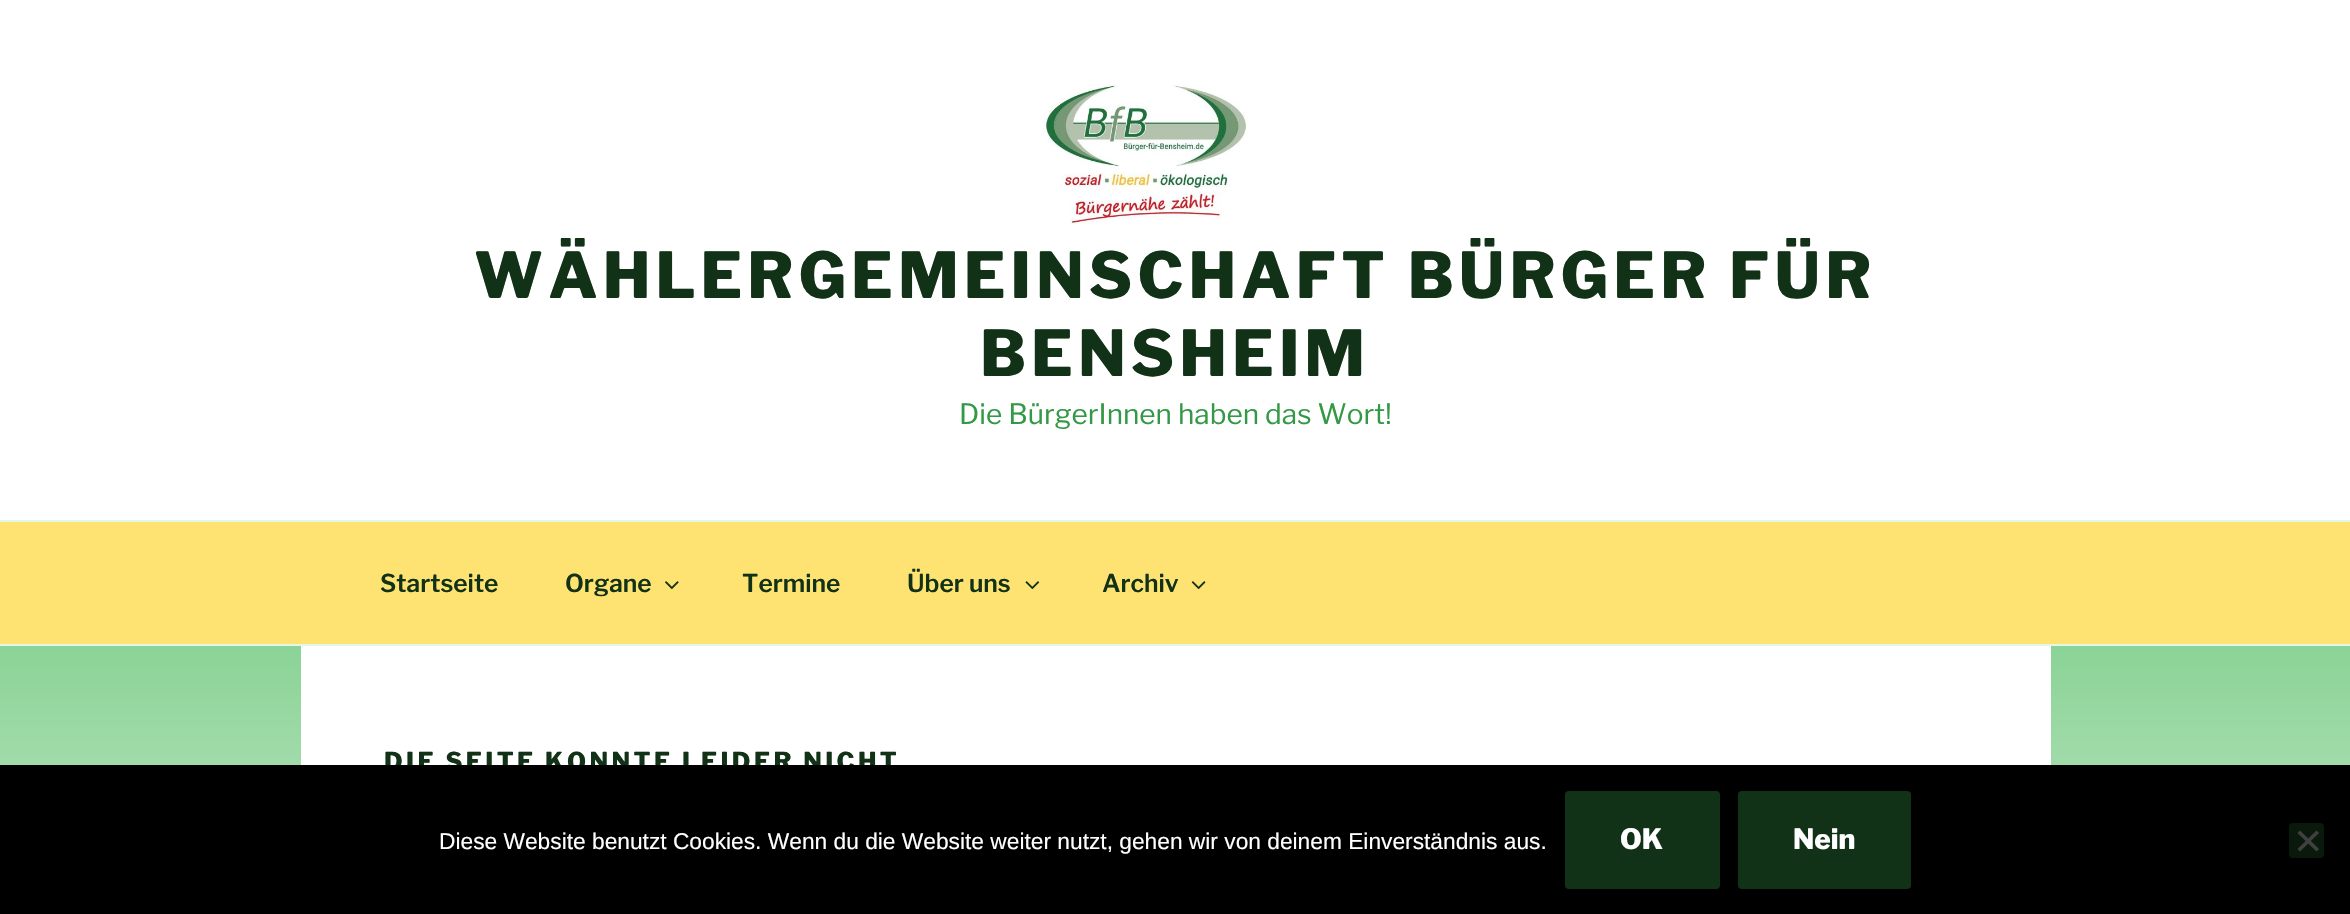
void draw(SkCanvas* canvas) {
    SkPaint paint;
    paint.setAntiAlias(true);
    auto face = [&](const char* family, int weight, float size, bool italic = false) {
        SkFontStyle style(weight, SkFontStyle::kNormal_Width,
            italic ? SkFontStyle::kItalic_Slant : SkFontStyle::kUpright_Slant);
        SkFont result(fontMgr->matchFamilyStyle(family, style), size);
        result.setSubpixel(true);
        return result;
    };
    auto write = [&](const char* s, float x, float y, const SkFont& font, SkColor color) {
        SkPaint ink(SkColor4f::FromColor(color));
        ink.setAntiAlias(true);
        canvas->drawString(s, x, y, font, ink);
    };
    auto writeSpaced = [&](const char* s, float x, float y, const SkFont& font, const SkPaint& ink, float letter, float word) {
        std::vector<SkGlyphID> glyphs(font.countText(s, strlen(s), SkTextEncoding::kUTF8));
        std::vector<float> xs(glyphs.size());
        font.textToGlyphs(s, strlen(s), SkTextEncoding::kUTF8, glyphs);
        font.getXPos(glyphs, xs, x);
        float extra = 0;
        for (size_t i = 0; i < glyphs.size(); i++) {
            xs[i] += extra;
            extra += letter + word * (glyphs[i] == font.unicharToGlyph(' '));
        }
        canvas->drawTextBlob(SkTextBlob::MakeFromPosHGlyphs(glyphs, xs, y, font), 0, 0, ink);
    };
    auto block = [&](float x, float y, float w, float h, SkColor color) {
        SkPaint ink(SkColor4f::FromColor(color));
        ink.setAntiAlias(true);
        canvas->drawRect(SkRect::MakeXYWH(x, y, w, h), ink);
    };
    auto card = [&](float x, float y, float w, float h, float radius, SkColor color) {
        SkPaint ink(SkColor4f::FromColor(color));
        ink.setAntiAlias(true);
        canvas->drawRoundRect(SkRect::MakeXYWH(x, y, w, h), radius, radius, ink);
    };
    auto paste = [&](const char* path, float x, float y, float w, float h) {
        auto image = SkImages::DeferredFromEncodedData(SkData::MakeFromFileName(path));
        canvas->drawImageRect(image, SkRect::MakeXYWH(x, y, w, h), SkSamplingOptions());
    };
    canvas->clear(SK_ColorWHITE);
    paste("pic1.png", 1043, 84, 205, 140);
    auto kFont1 = face("Libre Franklin", 100, 63);
    paint.setColor(SkColorSetRGB(17, 50, 23));
    writeSpaced("WÄHLERGEMEINSCHAFT BÜRGER FÜR", 474, 298, kFont1, paint, 5.05f, 0);
    writeSpaced("BENSHEIM", 980, 376, kFont1, paint, 5.05f, 0);
    auto kFont2 = face("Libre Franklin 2", 100, 28);
    write("Die BürgerInnen haben das Wort!", 959, 424, kFont2, SkColorSetRGB(51, 153, 70));
    block(0, 522, 2350, 122, SkColorSetRGB(255, 227, 114));
    block(0, 520, 2350, 2, SkColorSetRGB(228, 246, 231));
    block(0, 644, 2350, 2, SkColorSetRGB(228, 246, 231));
    auto kFont3 = face("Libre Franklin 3", 100, 24.5f);
    write("Startseite", 380, 592, kFont3, SkColorSetRGB(17, 50, 23));
    write("Organe", 565, 592, kFont3, SkColorSetRGB(17, 50, 23));
    paste("pic2.png", 665, 581, 14, 9);
    write("Termine", 742, 592, kFont3, SkColorSetRGB(17, 50, 23));
    write("Über uns", 907, 592, kFont3, SkColorSetRGB(17, 50, 23));
    paste("pic3.png", 1025, 581, 15, 9);
    write("Archiv", 1102, 592, kFont3, SkColorSetRGB(17, 50, 23));
    paste("pic4.png", 1191, 581, 15, 9);
    {
        const SkColor colors[] = {SkColorSetRGB(139, 211, 150), SK_ColorWHITE};
        const float stops[] = {0, 1};
        const SkPoint ends[] = {{1175, 646}, {1175, 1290}};
        paint.setShader(SkGradientShader::MakeLinear(ends, colors, stops, 2, SkTileMode::kClamp));
        paint.setAlpha(255);
    }
    canvas->drawRect(SkRect::MakeXYWH(0, 646, 2350, 119), paint);
    block(301, 646, 1750, 119, SK_ColorWHITE);
    auto kFont4 = face("Libre Franklin", 100, 24.5f);
    paint.setShader(nullptr);
    paint.setColor(SkColorSetRGB(17, 50, 23));
    writeSpaced("DIE SEITE KONNTE LEIDER NICHT", 384, 770, kFont4, paint, 3.4f, 0);
    block(0, 765, 2350, 149, SK_ColorBLACK);
    auto kFont5 = face("Liberation Sans", 400, 22.75f);
    write("Diese Website benutzt Cookies. Wenn du die Website weiter nutzt, gehen wir von deinem Einverständnis aus.", 439, 849, kFont5, SK_ColorWHITE);
    card(1565, 791, 155, 98, 4, SkColorSetRGB(17, 50, 23));
    auto kFont6 = face("Libre Franklin", 100, 28);
    write("OK", 1620, 849, kFont6, SK_ColorWHITE);
    card(1738, 791, 173, 98, 4, SkColorSetRGB(17, 50, 23));
    write("Nein", 1793, 849, kFont6, SK_ColorWHITE);
    card(2289, 823, 35, 35, 4, SkColorSetRGB(9, 25, 12));
    paint.setColor(SkColorSetRGB(64, 64, 64));
    canvas->drawPath(SkPathBuilder().moveTo(2316.5f, 830.5f).lineTo(2319, 833).lineTo(2300, 851.5f).lineTo(2297.5f, 849).close().detach(), paint);
    canvas->drawPath(SkPathBuilder().moveTo(2297.5f, 833).lineTo(2300, 830.5f).lineTo(2319, 849).lineTo(2316.5f, 851.5f).close().detach(), paint);
}
